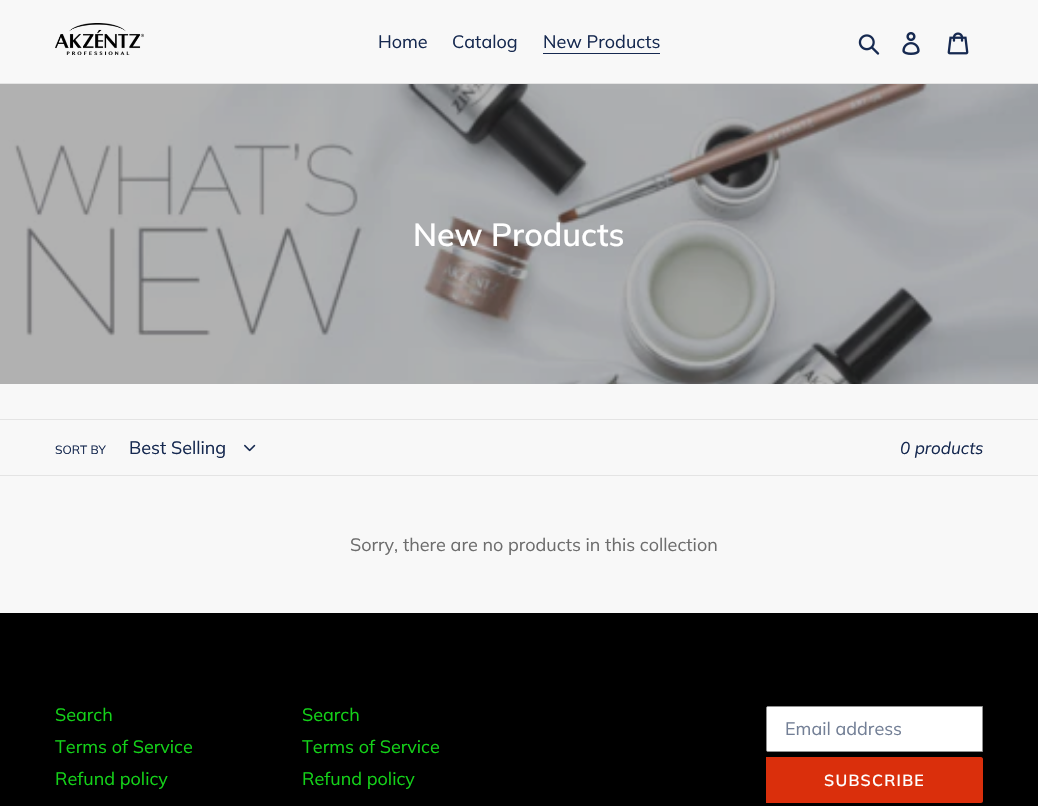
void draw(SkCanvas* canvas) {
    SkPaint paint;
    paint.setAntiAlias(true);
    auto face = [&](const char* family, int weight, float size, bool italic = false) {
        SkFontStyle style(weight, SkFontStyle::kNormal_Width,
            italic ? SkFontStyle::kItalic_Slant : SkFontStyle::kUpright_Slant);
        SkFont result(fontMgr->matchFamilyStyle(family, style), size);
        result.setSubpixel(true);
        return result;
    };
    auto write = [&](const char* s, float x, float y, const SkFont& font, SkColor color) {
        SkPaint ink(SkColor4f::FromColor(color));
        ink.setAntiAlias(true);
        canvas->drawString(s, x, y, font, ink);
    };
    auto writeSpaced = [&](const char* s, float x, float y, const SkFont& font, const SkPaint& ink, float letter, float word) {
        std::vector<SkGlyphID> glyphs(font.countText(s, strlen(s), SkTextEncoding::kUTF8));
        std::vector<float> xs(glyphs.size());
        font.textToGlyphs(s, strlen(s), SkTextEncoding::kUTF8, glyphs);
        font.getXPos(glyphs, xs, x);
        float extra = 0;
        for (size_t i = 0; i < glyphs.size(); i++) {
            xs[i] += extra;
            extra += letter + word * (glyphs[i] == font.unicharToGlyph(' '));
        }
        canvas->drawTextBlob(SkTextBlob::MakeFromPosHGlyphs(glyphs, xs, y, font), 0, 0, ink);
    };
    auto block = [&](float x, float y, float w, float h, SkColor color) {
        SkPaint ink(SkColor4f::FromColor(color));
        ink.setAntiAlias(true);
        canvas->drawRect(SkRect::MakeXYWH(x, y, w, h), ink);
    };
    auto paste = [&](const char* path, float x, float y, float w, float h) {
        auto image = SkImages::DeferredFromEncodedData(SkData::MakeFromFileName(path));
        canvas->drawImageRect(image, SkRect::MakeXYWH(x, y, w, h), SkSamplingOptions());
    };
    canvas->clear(SkColorSetRGB(248, 248, 248));
    block(0, 83, 1038, 1, SkColorSetRGB(228, 228, 228));
    paste("pic1.png", 55, 23, 89, 32);
    auto kFont1 = face("Muli", 400, 18);
    write("Home", 378, 48, kFont1, SkColorSetRGB(22, 41, 80));
    write("Catalog", 452, 48, kFont1, SkColorSetRGB(22, 41, 80));
    write("New Products", 543, 48, kFont1, SkColorSetRGB(22, 41, 80));
    block(543, 53, 117, 1, SkColorSetRGB(22, 41, 80));
    paste("pic2.png", 858, 34, 22, 21);
    paste("pic3.png", 902, 32, 18, 23);
    paste("pic4.png", 947, 32, 22, 23);
    paste("pic5.png", 0, 84, 1038, 300);
    auto kFont2 = face("Muli", 600, 32);
    write("New Products", 413, 246, kFont2, SK_ColorWHITE);
    block(0, 419, 1038, 1, SkColorSetRGB(228, 228, 228));
    block(0, 475, 1038, 1, SkColorSetRGB(228, 228, 228));
    auto kFont3 = face("Muli", 400, 12);
    write("SORT BY", 55, 454, kFont3, SkColorSetRGB(22, 41, 80));
    write("Best Selling", 129, 454, kFont1, SkColorSetRGB(22, 41, 80));
    paste("pic6.png", 244, 444, 12, 8);
    auto kFont4 = face("Muli", 400, 17, true);
    write("0 products", 900, 454, kFont4, SkColorSetRGB(22, 41, 80));
    write("Sorry, there are no products in this collection", 350, 551, kFont1, SkColorSetRGB(109, 109, 109));
    block(0, 613, 1038, 193, SK_ColorBLACK);
    write("Search", 55, 721, kFont1, SkColorSetRGB(20, 210, 25));
    write("Terms of Service", 55, 753, kFont1, SkColorSetRGB(20, 210, 25));
    write("Refund policy", 55, 785, kFont1, SkColorSetRGB(20, 210, 25));
    write("Search", 302, 721, kFont1, SkColorSetRGB(20, 210, 25));
    write("Terms of Service", 302, 753, kFont1, SkColorSetRGB(20, 210, 25));
    write("Refund policy", 302, 785, kFont1, SkColorSetRGB(20, 210, 25));
    paint.setColor(SK_ColorWHITE);
    canvas->drawPath(SkPathBuilder().moveTo(768, 706.5f).lineTo(982.5f, 706.5f).lineTo(982.5f, 751.5f).lineTo(768, 751.5f).cubicTo(767, 751.5f, 766.5f, 751, 766.5f, 750).lineTo(766.5f, 708).cubicTo(766.5f, 707, 767, 706.5f, 768, 706.5f).close().detach(), paint);
    paint.setStyle(SkPaint::kStroke_Style);
    paint.setStrokeWidth(1);
    paint.setColor(SkColorSetRGB(144, 144, 144));
    canvas->drawPath(SkPathBuilder().moveTo(768, 706.5f).lineTo(982.5f, 706.5f).lineTo(982.5f, 751.5f).lineTo(768, 751.5f).cubicTo(767, 751.5f, 766.5f, 751, 766.5f, 750).lineTo(766.5f, 708).cubicTo(766.5f, 707, 767, 706.5f, 768, 706.5f).close().detach(), paint);
    write("Email address", 785, 735, kFont1, SkColorSetRGB(115, 127, 150));
    paint.setStyle(SkPaint::kFill_Style);
    paint.setColor(SkColorSetRGB(218, 47, 12));
    canvas->drawPath(SkPathBuilder().moveTo(766, 757).lineTo(981, 757).cubicTo(982, 757, 983, 758, 983, 759).lineTo(983, 801).cubicTo(983, 802, 982, 803, 981, 803).lineTo(766, 803).close().detach(), paint);
    auto kFont5 = face("Muli", 600, 16);
    paint.setColor(SK_ColorWHITE);
    writeSpaced("SUBSCRIBE", 824, 786, kFont5, paint, 1.25f, 0);
}
